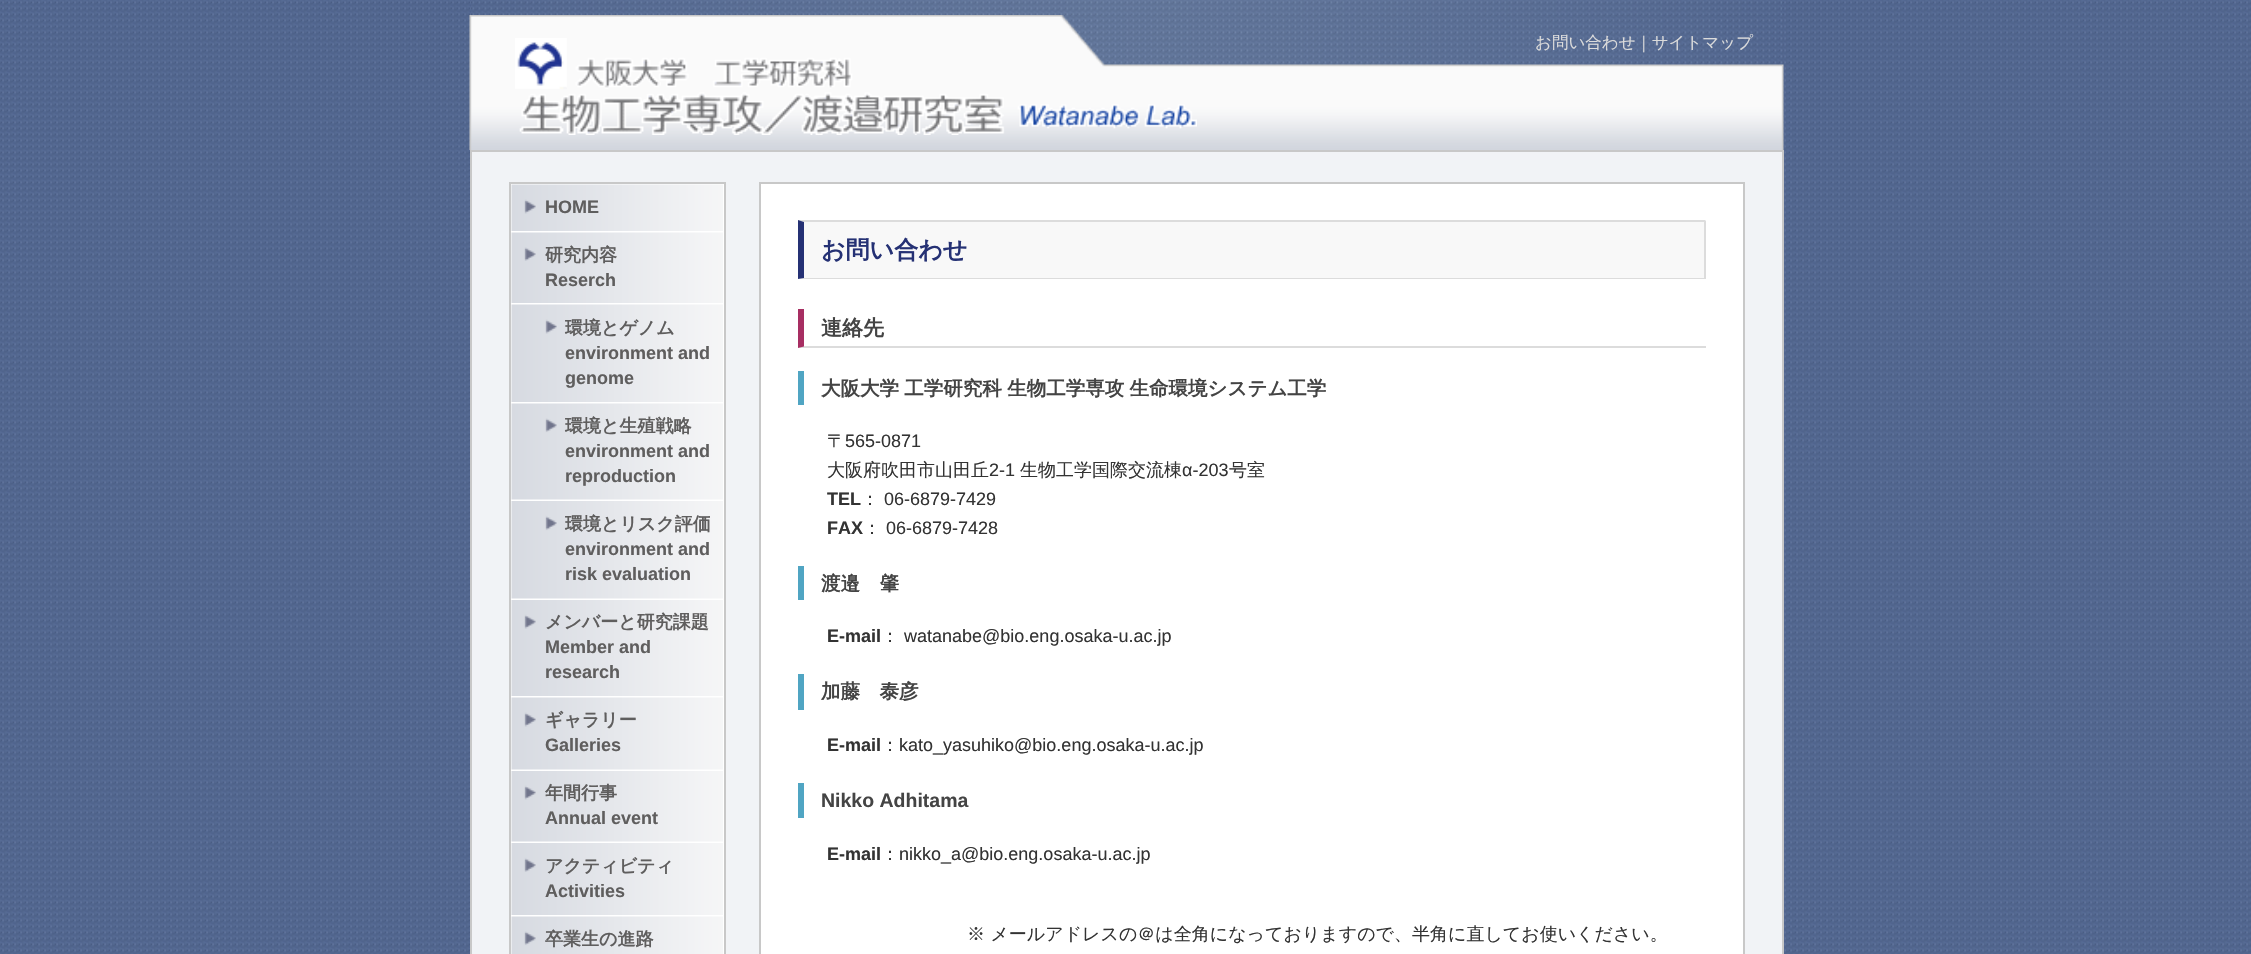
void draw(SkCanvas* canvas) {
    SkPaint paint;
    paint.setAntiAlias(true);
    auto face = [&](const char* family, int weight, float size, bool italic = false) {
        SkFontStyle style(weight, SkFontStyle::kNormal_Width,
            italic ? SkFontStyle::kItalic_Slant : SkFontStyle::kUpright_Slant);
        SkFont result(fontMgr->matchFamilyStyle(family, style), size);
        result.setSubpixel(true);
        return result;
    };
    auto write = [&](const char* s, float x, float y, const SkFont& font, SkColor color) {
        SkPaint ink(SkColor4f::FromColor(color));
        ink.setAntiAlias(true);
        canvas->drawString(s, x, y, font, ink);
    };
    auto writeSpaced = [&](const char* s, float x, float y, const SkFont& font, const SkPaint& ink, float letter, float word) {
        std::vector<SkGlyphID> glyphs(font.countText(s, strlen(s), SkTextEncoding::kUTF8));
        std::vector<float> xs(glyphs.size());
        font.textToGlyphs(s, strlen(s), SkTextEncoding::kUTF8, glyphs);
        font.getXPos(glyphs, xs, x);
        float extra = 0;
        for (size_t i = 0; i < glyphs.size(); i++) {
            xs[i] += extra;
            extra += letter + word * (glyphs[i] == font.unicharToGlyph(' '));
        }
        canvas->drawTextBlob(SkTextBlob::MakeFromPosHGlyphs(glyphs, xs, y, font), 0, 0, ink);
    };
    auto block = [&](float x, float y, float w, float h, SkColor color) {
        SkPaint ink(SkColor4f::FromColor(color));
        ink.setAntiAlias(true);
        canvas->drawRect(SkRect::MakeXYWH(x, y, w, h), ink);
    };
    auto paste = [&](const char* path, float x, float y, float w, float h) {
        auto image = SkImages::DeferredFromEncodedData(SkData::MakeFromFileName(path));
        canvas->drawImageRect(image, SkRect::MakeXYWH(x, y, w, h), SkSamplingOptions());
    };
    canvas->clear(SK_ColorWHITE);
    paste("pic1.png", 0, 0, 2251, 954);
    paste("pic2.png", 471, 0, 1311, 15);
    paste("pic3.png", 469, 15, 1315, 135);
    paste("pic4.png", 515, 38, 682, 97);
    auto kFont1 = face("WenQuanYi Zen Hei", 500, 16.5f);
    write("お問い合わせ｜サイトマップ", 1535, 48, kFont1, SkColorSetRGB(219, 219, 219));
    paint.setColor(SkColorSetRGB(241, 243, 246));
    canvas->drawRect(SkRect::MakeXYWH(471, 151, 1312, 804), paint);
    paint.setStyle(SkPaint::kStroke_Style);
    paint.setStrokeWidth(2);
    paint.setColor(SkColorSetRGB(200, 200, 200));
    canvas->drawRect(SkRect::MakeXYWH(471, 151, 1312, 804), paint);
    paint.setStyle(SkPaint::kFill_Style);
    paint.setColor(SK_ColorWHITE);
    canvas->drawRect(SkRect::MakeXYWH(510, 183, 215, 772), paint);
    paint.setStyle(SkPaint::kStroke_Style);
    paint.setColor(SkColorSetRGB(200, 200, 200));
    canvas->drawRect(SkRect::MakeXYWH(510, 183, 215, 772), paint);
    paste("pic5.png", 511, 184, 212, 47);
    auto kFont2 = face("Liberation Sans", 700, 18);
    write("HOME", 545, 213, kFont2, SkColorSetRGB(95, 94, 94));
    paste("pic6.png", 511, 232, 212, 71);
    auto kFont3 = face("WenQuanYi Zen Hei", 700, 18);
    write("研究内容", 545, 261, kFont3, SkColorSetRGB(95, 94, 94));
    write("Reserch", 545, 286, kFont2, SkColorSetRGB(95, 94, 94));
    paste("pic7.png", 511, 304, 212, 98);
    write("環境とゲノム", 565, 334, kFont3, SkColorSetRGB(95, 94, 94));
    write("environment and", 565, 359, kFont2, SkColorSetRGB(95, 94, 94));
    write("genome", 565, 384, kFont2, SkColorSetRGB(95, 94, 94));
    paste("pic8.png", 511, 403, 212, 97);
    write("環境と生殖戦略", 565, 432, kFont3, SkColorSetRGB(95, 94, 94));
    write("environment and", 565, 457, kFont2, SkColorSetRGB(95, 94, 94));
    write("reproduction", 565, 482, kFont2, SkColorSetRGB(95, 94, 94));
    paste("pic9.png", 511, 501, 212, 98);
    write("環境とリスク評価", 565, 530, kFont3, SkColorSetRGB(95, 94, 94));
    write("environment and", 565, 555, kFont2, SkColorSetRGB(95, 94, 94));
    write("risk evaluation", 565, 580, kFont2, SkColorSetRGB(95, 94, 94));
    paste("pic10.png", 511, 600, 212, 96);
    write("メンバーと研究課題", 545, 628, kFont3, SkColorSetRGB(95, 94, 94));
    write("Member and", 545, 653, kFont2, SkColorSetRGB(95, 94, 94));
    write("research", 545, 678, kFont2, SkColorSetRGB(95, 94, 94));
    paste("pic11.png", 511, 697, 212, 73);
    write("ギャラリー", 545, 726, kFont3, SkColorSetRGB(95, 94, 94));
    write("Galleries", 545, 751, kFont2, SkColorSetRGB(95, 94, 94));
    paste("pic12.png", 511, 771, 212, 71);
    write("年間行事", 545, 799, kFont3, SkColorSetRGB(95, 94, 94));
    write("Annual event", 545, 824, kFont2, SkColorSetRGB(95, 94, 94));
    paste("pic13.png", 511, 843, 212, 72);
    write("アクティビティ", 545, 872, kFont3, SkColorSetRGB(95, 94, 94));
    write("Activities", 545, 897, kFont2, SkColorSetRGB(95, 94, 94));
    paste("pic14.png", 511, 916, 212, 38);
    write("卒業生の進路", 545, 945, kFont3, SkColorSetRGB(95, 94, 94));
    paint.setStyle(SkPaint::kFill_Style);
    paint.setColor(SK_ColorWHITE);
    canvas->drawRect(SkRect::MakeXYWH(760, 183, 984, 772), paint);
    paint.setStyle(SkPaint::kStroke_Style);
    paint.setColor(SkColorSetRGB(200, 200, 200));
    canvas->drawRect(SkRect::MakeXYWH(760, 183, 984, 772), paint);
    block(804, 222, 900, 56, SkColorSetRGB(248, 248, 248));
    paint.setStyle(SkPaint::kFill_Style);
    paint.setColor(SkColorSetRGB(220, 220, 220));
    canvas->drawPath(SkPathBuilder().moveTo(798, 220).lineTo(1706, 220).lineTo(1704, 222).lineTo(804, 222).close().detach(), paint);
    block(1704, 221, 2, 58, SkColorSetRGB(220, 220, 220));
    canvas->drawPath(SkPathBuilder().moveTo(1706, 279).lineTo(798, 279).lineTo(804, 278).lineTo(1704, 278).close().detach(), paint);
    paint.setColor(SkColorSetRGB(37, 49, 116));
    canvas->drawPath(SkPathBuilder().moveTo(798, 279).lineTo(798, 220).lineTo(804, 222).lineTo(804, 278).close().detach(), paint);
    auto kFont4 = face("WenQuanYi Zen Hei", 700, 24);
    write("お問い合わせ", 821, 258, kFont4, SkColorSetRGB(37, 49, 116));
    paint.setColor(SkColorSetRGB(220, 220, 220));
    canvas->drawPath(SkPathBuilder().moveTo(1706, 348).lineTo(798, 348).lineTo(804, 346).lineTo(1706, 346).close().detach(), paint);
    paint.setColor(SkColorSetRGB(167, 46, 98));
    canvas->drawPath(SkPathBuilder().moveTo(798, 348).lineTo(798, 309).lineTo(804, 309).lineTo(804, 346.5f).close().detach(), paint);
    auto kFont5 = face("WenQuanYi Zen Hei", 700, 21);
    write("連絡先", 821, 335, kFont5, SkColorSetRGB(68, 68, 68));
    block(798, 371, 6, 34, SkColorSetRGB(80, 165, 195));
    auto kFont6 = face("WenQuanYi Zen Hei", 700, 19.5f);
    paint.setColor(SkColorSetRGB(68, 68, 68));
    writeSpaced("大阪大学 工学研究科 生物工学専攻 生命環境システム工学", 821, 395, kFont6, paint, 0, -0.5f);
    auto kFont7 = face("WenQuanYi Zen Hei", 500, 18);
    write("〒", 827, 447, kFont7, SkColorSetRGB(51, 51, 51));
    auto kFont8 = face("Liberation Sans", 400, 18);
    write("565-0871", 845, 447, kFont8, SkColorSetRGB(51, 51, 51));
    write("大阪府吹田市山田丘", 827, 476, kFont7, SkColorSetRGB(51, 51, 51));
    write("2-1", 989, 476, kFont8, SkColorSetRGB(51, 51, 51));
    write("生物工学国際交流棟", 1020, 476, kFont7, SkColorSetRGB(51, 51, 51));
    write("α-203", 1182, 476, kFont8, SkColorSetRGB(51, 51, 51));
    write("号室", 1229, 476, kFont7, SkColorSetRGB(51, 51, 51));
    write("TEL", 827, 505, kFont2, SkColorSetRGB(51, 51, 51));
    write("：", 861, 505, kFont7, SkColorSetRGB(51, 51, 51));
    write("06-6879-7429", 884, 505, kFont8, SkColorSetRGB(51, 51, 51));
    write("FAX", 827, 534, kFont2, SkColorSetRGB(51, 51, 51));
    write("：", 863, 534, kFont7, SkColorSetRGB(51, 51, 51));
    write("06-6879-7428", 886, 534, kFont8, SkColorSetRGB(51, 51, 51));
    block(798, 566, 6, 34, SkColorSetRGB(80, 165, 195));
    write("渡邉　肇", 821, 590, kFont6, SkColorSetRGB(68, 68, 68));
    write("E-mail", 827, 642, kFont2, SkColorSetRGB(51, 51, 51));
    write("：", 881, 642, kFont7, SkColorSetRGB(51, 51, 51));
    write("watanabe@bio.eng.osaka-u.ac.jp", 904, 642, kFont8, SkColorSetRGB(51, 51, 51));
    block(798, 674, 6, 36, SkColorSetRGB(80, 165, 195));
    write("加藤　泰彦", 821, 698, kFont6, SkColorSetRGB(68, 68, 68));
    write("E-mail", 827, 751, kFont2, SkColorSetRGB(51, 51, 51));
    write("：", 881, 751, kFont7, SkColorSetRGB(51, 51, 51));
    write("kato_yasuhiko@bio.eng.osaka-u.ac.jp", 899, 751, kFont8, SkColorSetRGB(51, 51, 51));
    block(798, 783, 6, 35, SkColorSetRGB(80, 165, 195));
    auto kFont9 = face("Liberation Sans", 700, 19.5f);
    write("Nikko Adhitama", 821, 807, kFont9, SkColorSetRGB(68, 68, 68));
    write("E-mail", 827, 860, kFont2, SkColorSetRGB(51, 51, 51));
    write("：", 881, 860, kFont7, SkColorSetRGB(51, 51, 51));
    write("nikko_a@bio.eng.osaka-u.ac.jp", 899, 860, kFont8, SkColorSetRGB(51, 51, 51));
    write("※ メールアドレスの＠は全角になっておりますので、半角に直してお使いください。", 967, 940, kFont7, SkColorSetRGB(51, 51, 51));
}
